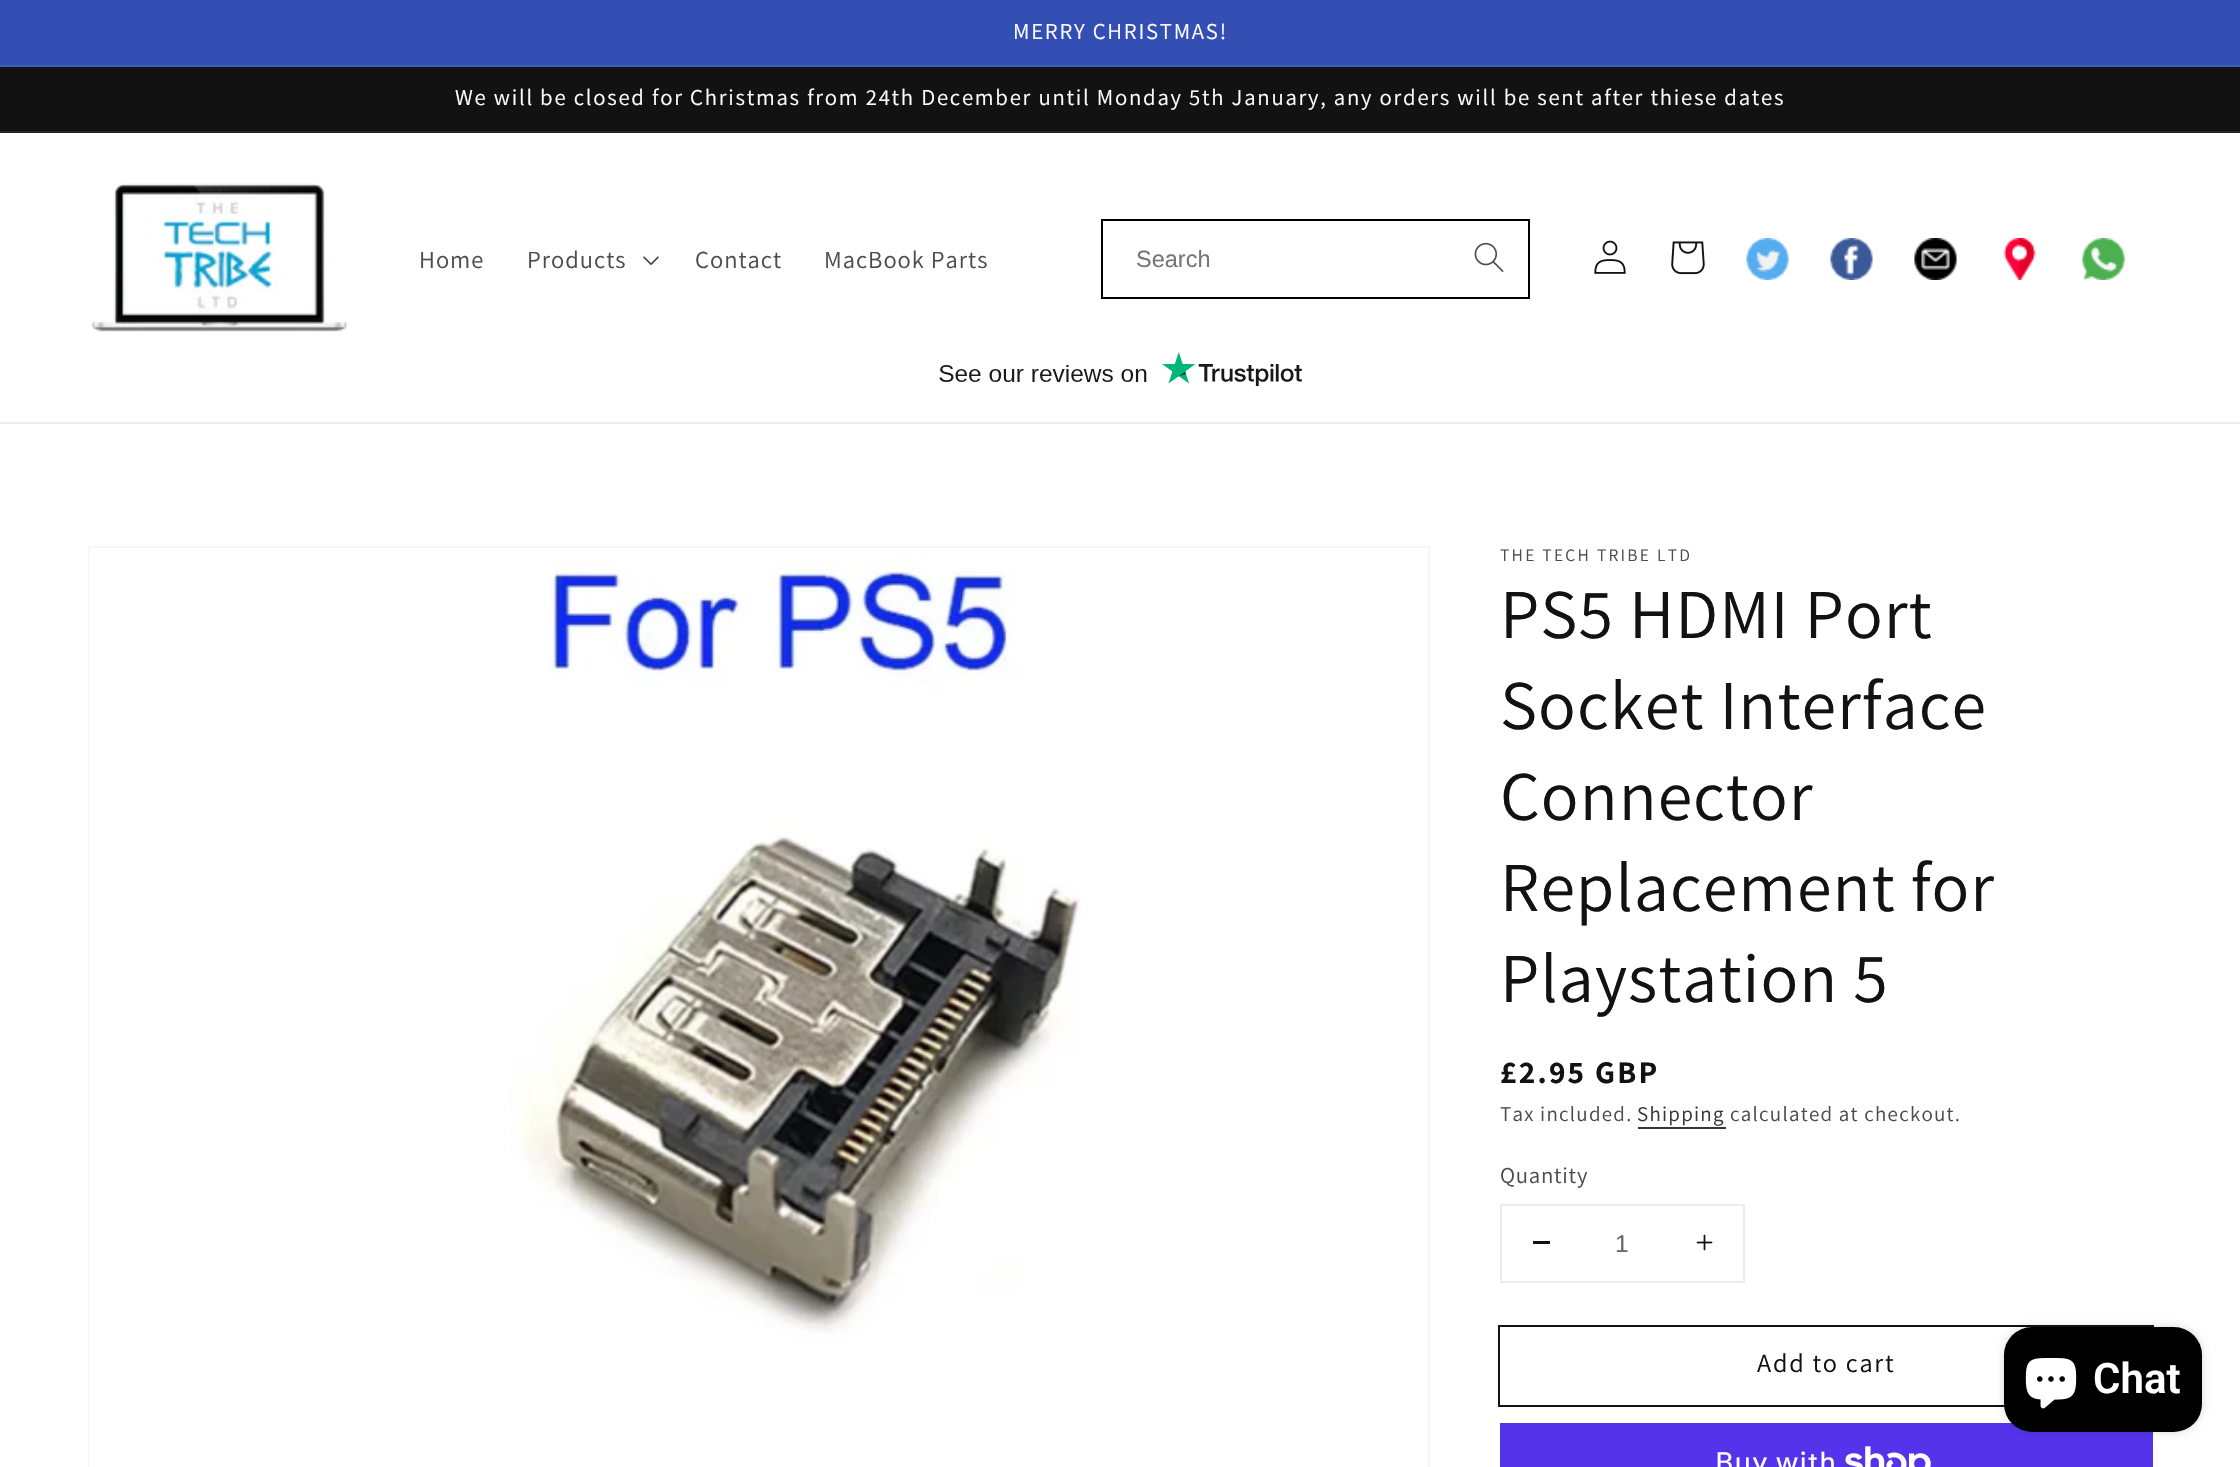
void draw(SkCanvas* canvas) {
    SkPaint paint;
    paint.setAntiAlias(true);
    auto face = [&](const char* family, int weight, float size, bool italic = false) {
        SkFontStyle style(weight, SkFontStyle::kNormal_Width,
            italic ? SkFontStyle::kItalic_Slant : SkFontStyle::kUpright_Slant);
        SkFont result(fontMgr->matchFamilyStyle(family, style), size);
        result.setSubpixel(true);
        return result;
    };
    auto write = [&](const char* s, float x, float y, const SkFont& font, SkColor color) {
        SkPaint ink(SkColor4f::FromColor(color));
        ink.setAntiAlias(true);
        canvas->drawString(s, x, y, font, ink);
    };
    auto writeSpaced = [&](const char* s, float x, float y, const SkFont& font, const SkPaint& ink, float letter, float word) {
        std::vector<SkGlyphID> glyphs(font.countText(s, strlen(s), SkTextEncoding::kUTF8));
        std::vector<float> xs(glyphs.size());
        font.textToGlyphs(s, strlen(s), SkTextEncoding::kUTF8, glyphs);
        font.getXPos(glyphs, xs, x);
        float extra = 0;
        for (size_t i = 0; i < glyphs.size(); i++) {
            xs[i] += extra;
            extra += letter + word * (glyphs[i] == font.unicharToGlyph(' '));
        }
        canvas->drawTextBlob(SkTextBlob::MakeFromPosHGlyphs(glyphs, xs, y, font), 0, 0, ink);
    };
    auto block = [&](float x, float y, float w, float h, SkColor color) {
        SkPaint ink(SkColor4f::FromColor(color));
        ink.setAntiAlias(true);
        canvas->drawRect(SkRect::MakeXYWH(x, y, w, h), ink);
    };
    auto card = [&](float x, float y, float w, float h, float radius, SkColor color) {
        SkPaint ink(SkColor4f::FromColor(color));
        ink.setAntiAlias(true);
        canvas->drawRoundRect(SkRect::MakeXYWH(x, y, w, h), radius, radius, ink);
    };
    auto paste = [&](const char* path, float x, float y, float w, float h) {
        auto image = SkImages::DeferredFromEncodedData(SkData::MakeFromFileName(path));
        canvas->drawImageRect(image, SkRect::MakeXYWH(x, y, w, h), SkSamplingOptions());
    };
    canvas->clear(SK_ColorWHITE);
    block(0, 0, 2240, 65, SkColorSetRGB(51, 79, 180));
    block(0, 65, 2240, 2, SkColorSetRGB(67, 93, 186));
    auto kFont1 = face("Assistant", 400, 22.75f);
    paint.setColor(SK_ColorWHITE);
    writeSpaced("MERRY CHRISTMAS!", 1013, 39, kFont1, paint, 1.75f, 0);
    block(0, 67, 2240, 64, SkColorSetRGB(18, 18, 18));
    block(0, 131, 2240, 2, SkColorSetRGB(37, 37, 37));
    writeSpaced("We will be closed for Christmas from 24th December until Monday 5th January, any orders will be sent after thiese dates", 455, 105, kFont1, paint, 1.75f, 0);
    block(0, 422, 2240, 2, SkColorSetRGB(236, 236, 236));
    paste("pic1.png", 91, 183, 256, 149);
    auto kFont2 = face("Assistant", 400, 24.5f);
    paint.setColor(SkColorSetRGB(77, 77, 77));
    writeSpaced("Home", 419, 268, kFont2, paint, 1, 0);
    writeSpaced("Products", 527, 268, kFont2, paint, 1, 0);
    paste("pic2.png", 643, 256, 16, 9);
    writeSpaced("Contact", 695, 268, kFont2, paint, 1, 0);
    writeSpaced("MacBook Parts", 824, 268, kFont2, paint, 1, 0);
    paint.setStyle(SkPaint::kStroke_Style);
    paint.setStrokeWidth(2);
    paint.setColor(SK_ColorBLACK);
    canvas->drawRect(SkRect::MakeXYWH(1102, 220, 427, 78), paint);
    auto kFont3 = face("Liberation Sans", 400, 23.5f);
    write("Search", 1136, 267, kFont3, SkColorSetRGB(117, 117, 117));
    paste("pic3.png", 1474, 242, 30, 30);
    paste("pic4.png", 1594, 240, 32, 34);
    paste("pic5.png", 1671, 241, 34, 34);
    paste("pic6.png", 1746, 238, 43, 42);
    paste("pic7.png", 1830, 238, 43, 42);
    paste("pic8.png", 1914, 238, 43, 42);
    paste("pic9.png", 2003, 238, 33, 42);
    paste("pic10.png", 2082, 238, 43, 42);
    paste("pic11.png", 939, 352, 363, 34);
    paint.setColor(SkColorSetRGB(246, 246, 246));
    canvas->drawRect(SkRect::MakeXYWH(89, 547, 1340, 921), paint);
    paste("pic12.png", 89, 548, 992, 919);
    auto kFont4 = face("Assistant", 400, 17.5f);
    paint.setStyle(SkPaint::kFill_Style);
    paint.setColor(SkColorSetRGB(77, 77, 77));
    writeSpaced("THE TECH TRIBE LTD", 1500, 561, kFont4, paint, 2.25f, 0);
    auto kFont5 = face("Assistant", 400, 70);
    paint.setColor(SkColorSetRGB(18, 18, 18));
    writeSpaced("PS5 HDMI Port", 1500, 638, kFont5, paint, 1, 0);
    writeSpaced("Socket Interface", 1500, 729, kFont5, paint, 1, 0);
    writeSpaced("Connector", 1500, 820, kFont5, paint, 1, 0);
    writeSpaced("Replacement for", 1500, 911, kFont5, paint, 1, 0);
    writeSpaced("Playstation 5", 1500, 1002, kFont5, paint, 1, 0);
    auto kFont6 = face("Assistant", 700, 31.5f);
    writeSpaced("£2.95 GBP", 1500, 1083, kFont6, paint, 2.25f, 0);
    auto kFont7 = face("Assistant", 400, 21);
    paint.setColor(SkColorSetRGB(77, 77, 77));
    writeSpaced("Tax included.", 1500, 1121, kFont7, paint, 1.25f, 0);
    paint.setColor(SkColorSetRGB(54, 54, 54));
    writeSpaced("Shipping", 1637, 1121, kFont7, paint, 1.25f, 0);
    block(1638, 1127, 88, 2, SkColorSetRGB(54, 54, 54));
    paint.setColor(SkColorSetRGB(77, 77, 77));
    writeSpaced("calculated at checkout.", 1730, 1121, kFont7, paint, 1.25f, 0);
    writeSpaced("Quantity", 1500, 1183, kFont1, paint, 0.75f, 0);
    paint.setStyle(SkPaint::kStroke_Style);
    paint.setColor(SkColorSetRGB(236, 236, 236));
    canvas->drawRect(SkRect::MakeXYWH(1501, 1205, 243, 77), paint);
    block(1533, 1241, 17, 3, SkColorSetRGB(18, 18, 18));
    auto kFont8 = face("Liberation Sans", 400, 24.5f);
    write("1", 1615, 1252, kFont8, SkColorSetRGB(104, 104, 104));
    paste("pic13.png", 1696, 1234, 17, 17);
    paint.setColor(SkColorSetRGB(18, 18, 18));
    canvas->drawRect(SkRect::MakeXYWH(1499, 1326, 654, 80), paint);
    auto kFont9 = face("Assistant", 400, 26.25f);
    paint.setStyle(SkPaint::kFill_Style);
    writeSpaced("Add to cart", 1757, 1372, kFont9, paint, 1.75f, 0);
    block(1500, 1423, 653, 44, SkColorSetRGB(84, 51, 235));
    auto kFont10 = face("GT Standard", 400, 28);
    paint.setColor(SK_ColorWHITE);
    writeSpaced("Buy with", 1715, 1472, kFont10, paint, 1, 0);
    paste("pic14.png", 1845, 1446, 86, 21);
    paint.setColor(SkColorSetARGB(38, 0, 0, 0));
    paint.setMaskFilter(SkMaskFilter::MakeBlur(kNormal_SkBlurStyle, 4.5f));
    canvas->drawRoundRect(SkRect::MakeXYWH(2004, 1327, 198, 105), 28, 28, paint);
    paint.setMaskFilter(nullptr);
    card(2004, 1327, 198, 105, 28, SK_ColorBLACK);
    paste("pic15.png", 2025, 1358, 52, 51);
    auto kFont11 = face("Roboto", 600, 42);
    write("Chat", 2093, 1393, kFont11, SK_ColorWHITE);
}
